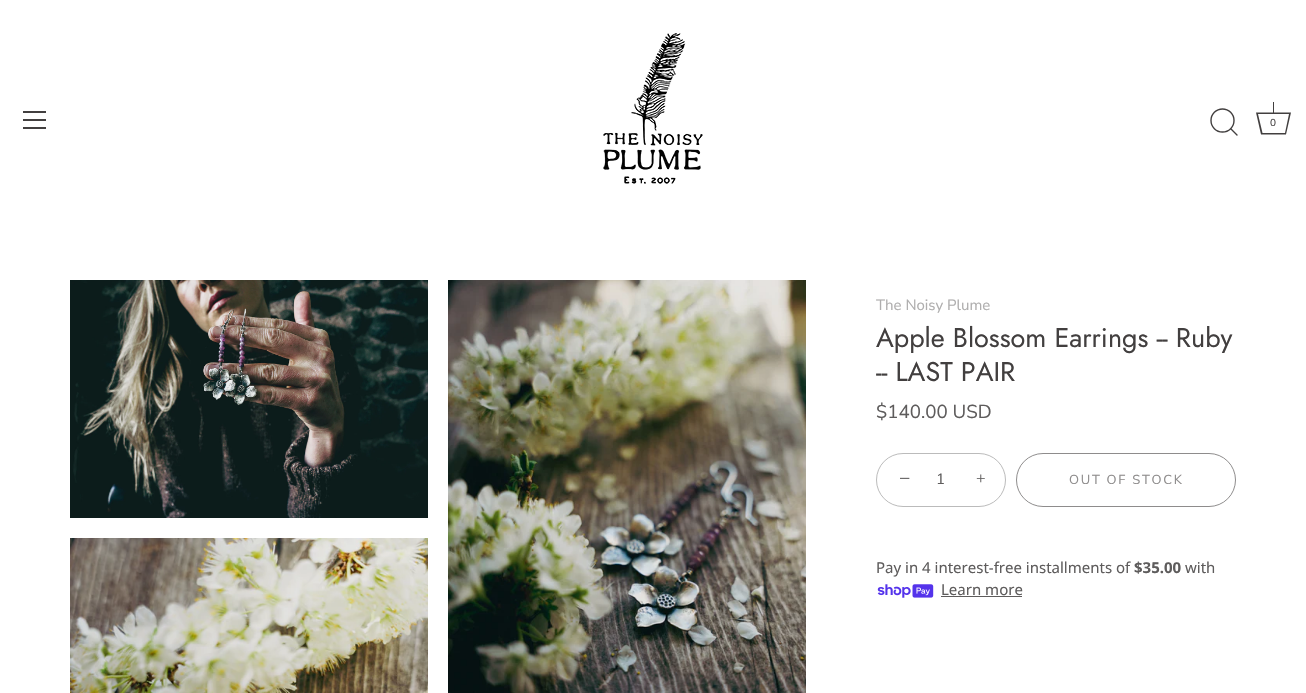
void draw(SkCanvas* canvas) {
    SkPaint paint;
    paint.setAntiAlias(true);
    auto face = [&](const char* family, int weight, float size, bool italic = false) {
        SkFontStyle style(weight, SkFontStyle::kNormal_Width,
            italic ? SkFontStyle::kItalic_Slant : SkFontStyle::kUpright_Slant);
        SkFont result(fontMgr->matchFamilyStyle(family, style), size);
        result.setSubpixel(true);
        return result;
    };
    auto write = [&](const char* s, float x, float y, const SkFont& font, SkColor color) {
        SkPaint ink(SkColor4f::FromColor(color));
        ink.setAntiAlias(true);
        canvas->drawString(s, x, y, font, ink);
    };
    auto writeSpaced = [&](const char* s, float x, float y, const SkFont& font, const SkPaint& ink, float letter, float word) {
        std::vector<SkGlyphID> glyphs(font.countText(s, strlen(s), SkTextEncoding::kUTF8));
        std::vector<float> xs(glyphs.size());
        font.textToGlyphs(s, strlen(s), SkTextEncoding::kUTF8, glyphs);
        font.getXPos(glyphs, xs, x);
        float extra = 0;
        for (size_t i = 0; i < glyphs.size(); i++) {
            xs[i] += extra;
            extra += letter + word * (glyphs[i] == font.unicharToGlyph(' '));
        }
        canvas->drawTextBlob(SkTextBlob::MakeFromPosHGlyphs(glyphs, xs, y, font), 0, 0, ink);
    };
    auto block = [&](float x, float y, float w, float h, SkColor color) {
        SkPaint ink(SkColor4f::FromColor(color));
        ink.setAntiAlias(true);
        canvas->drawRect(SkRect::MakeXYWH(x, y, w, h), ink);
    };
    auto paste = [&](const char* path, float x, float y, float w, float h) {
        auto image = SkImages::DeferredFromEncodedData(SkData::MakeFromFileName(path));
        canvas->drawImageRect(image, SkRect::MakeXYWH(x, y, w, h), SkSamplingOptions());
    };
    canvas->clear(SK_ColorWHITE);
    block(23, 111, 23, 2, SkColorSetRGB(66, 63, 63));
    block(23, 119, 23, 2, SkColorSetRGB(66, 63, 63));
    block(23, 127, 23, 2, SkColorSetRGB(66, 63, 63));
    paste("pic1.png", 603, 33, 100, 151);
    paint.setStyle(SkPaint::kStroke_Style);
    paint.setStrokeWidth(1.4f);
    paint.setColor(SkColorSetRGB(66, 63, 63));
    canvas->drawCircle(1222.5f, 120.5f, 11.5f, paint);
    paint.setStrokeCap(SkPaint::kRound_Cap);
    paint.setStrokeJoin(SkPaint::kRound_Join);
    canvas->drawPath(SkPathBuilder().moveTo(1237, 135).lineTo(1231, 129).detach(), paint);
    paint.setStyle(SkPaint::kFill_Style);
    canvas->drawPath(SkPathBuilder().moveTo(1289, 114).lineTo(1285, 133).lineTo(1262.5f, 133).lineTo(1258, 114).lineTo(1289, 114).moveTo(1291, 112.5f).lineTo(1256, 112.5f).lineTo(1261, 134.5f).lineTo(1286, 134.5f).close().detach(), paint);
    block(1273, 102, 1, 11, SkColorSetRGB(66, 63, 63));
    auto kFont1 = face("Nunito Sans", 400, 10);
    write("0", 1270, 126, kFont1, SkColorSetRGB(66, 63, 63));
    paste("pic2.png", 70, 280, 358, 238);
    paste("pic3.png", 70, 538, 358, 155);
    paste("pic4.png", 448, 280, 358, 413);
    auto kFont2 = face("Nunito Sans", 400, 15);
    write("The Noisy Plume", 876, 310, kFont2, SkColorSetRGB(175, 174, 174));
    auto kFont3 = face("Jost", 400, 27);
    write("Apple Blossom Earrings -- Ruby", 876, 347, kFont3, SkColorSetRGB(66, 63, 63));
    write("-- LAST PAIR", 876, 381, kFont3, SkColorSetRGB(66, 63, 63));
    auto kFont4 = face("Nunito Sans", 400, 18.75f);
    write("$140.00 USD", 876, 418, kFont4, SkColorSetRGB(94, 92, 92));
    paint.setStyle(SkPaint::kStroke_Style);
    paint.setStrokeWidth(1);
    paint.setStrokeCap(SkPaint::kButt_Cap);
    paint.setStrokeJoin(SkPaint::kMiter_Join);
    paint.setColor(SkColorSetRGB(187, 187, 187));
    canvas->drawRoundRect(SkRect::MakeXYWH(876.5f, 453.5f, 129, 53), 26.5f, 26.5f, paint);
    auto kFont5 = face("Liberation Serif", 400, 20);
    write("−", 899, 485, kFont5, SkColorSetRGB(94, 92, 92));
    paint.setStyle(SkPaint::kFill_Style);
    paint.setColor(SkColorSetRGB(94, 92, 92));
    writeSpaced("1", 936, 484, kFont2, paint, 1, 0);
    auto kFont6 = face("Liberation Serif", 400, 17);
    write("+", 976, 484, kFont6, SkColorSetRGB(94, 92, 92));
    paint.setStyle(SkPaint::kStroke_Style);
    paint.setColor(SkColorSetRGB(142, 140, 140));
    canvas->drawRoundRect(SkRect::MakeXYWH(1016.5f, 453.5f, 219, 53), 26.5f, 26.5f, paint);
    auto kFont7 = face("Nunito Sans", 400, 13);
    paint.setStyle(SkPaint::kFill_Style);
    writeSpaced("OUT OF STOCK", 1069, 484, kFont7, paint, 1.75f, 0);
    auto kFont8 = face("Noto Sans", 400, 15);
    write("Pay in 4 interest-free installments of", 876, 573, kFont8, SkColorSetRGB(94, 92, 92));
    auto kFont9 = face("Noto Sans", 700, 15);
    write("$35.00", 1134, 573, kFont9, SkColorSetRGB(94, 92, 92));
    write("with", 1185, 573, kFont8, SkColorSetRGB(94, 92, 92));
    paste("pic5.png", 877, 584, 57, 14);
    write("Learn more", 941, 595, kFont8, SkColorSetRGB(94, 92, 92));
    block(941, 596, 81, 1, SkColorSetRGB(94, 92, 92));
}
